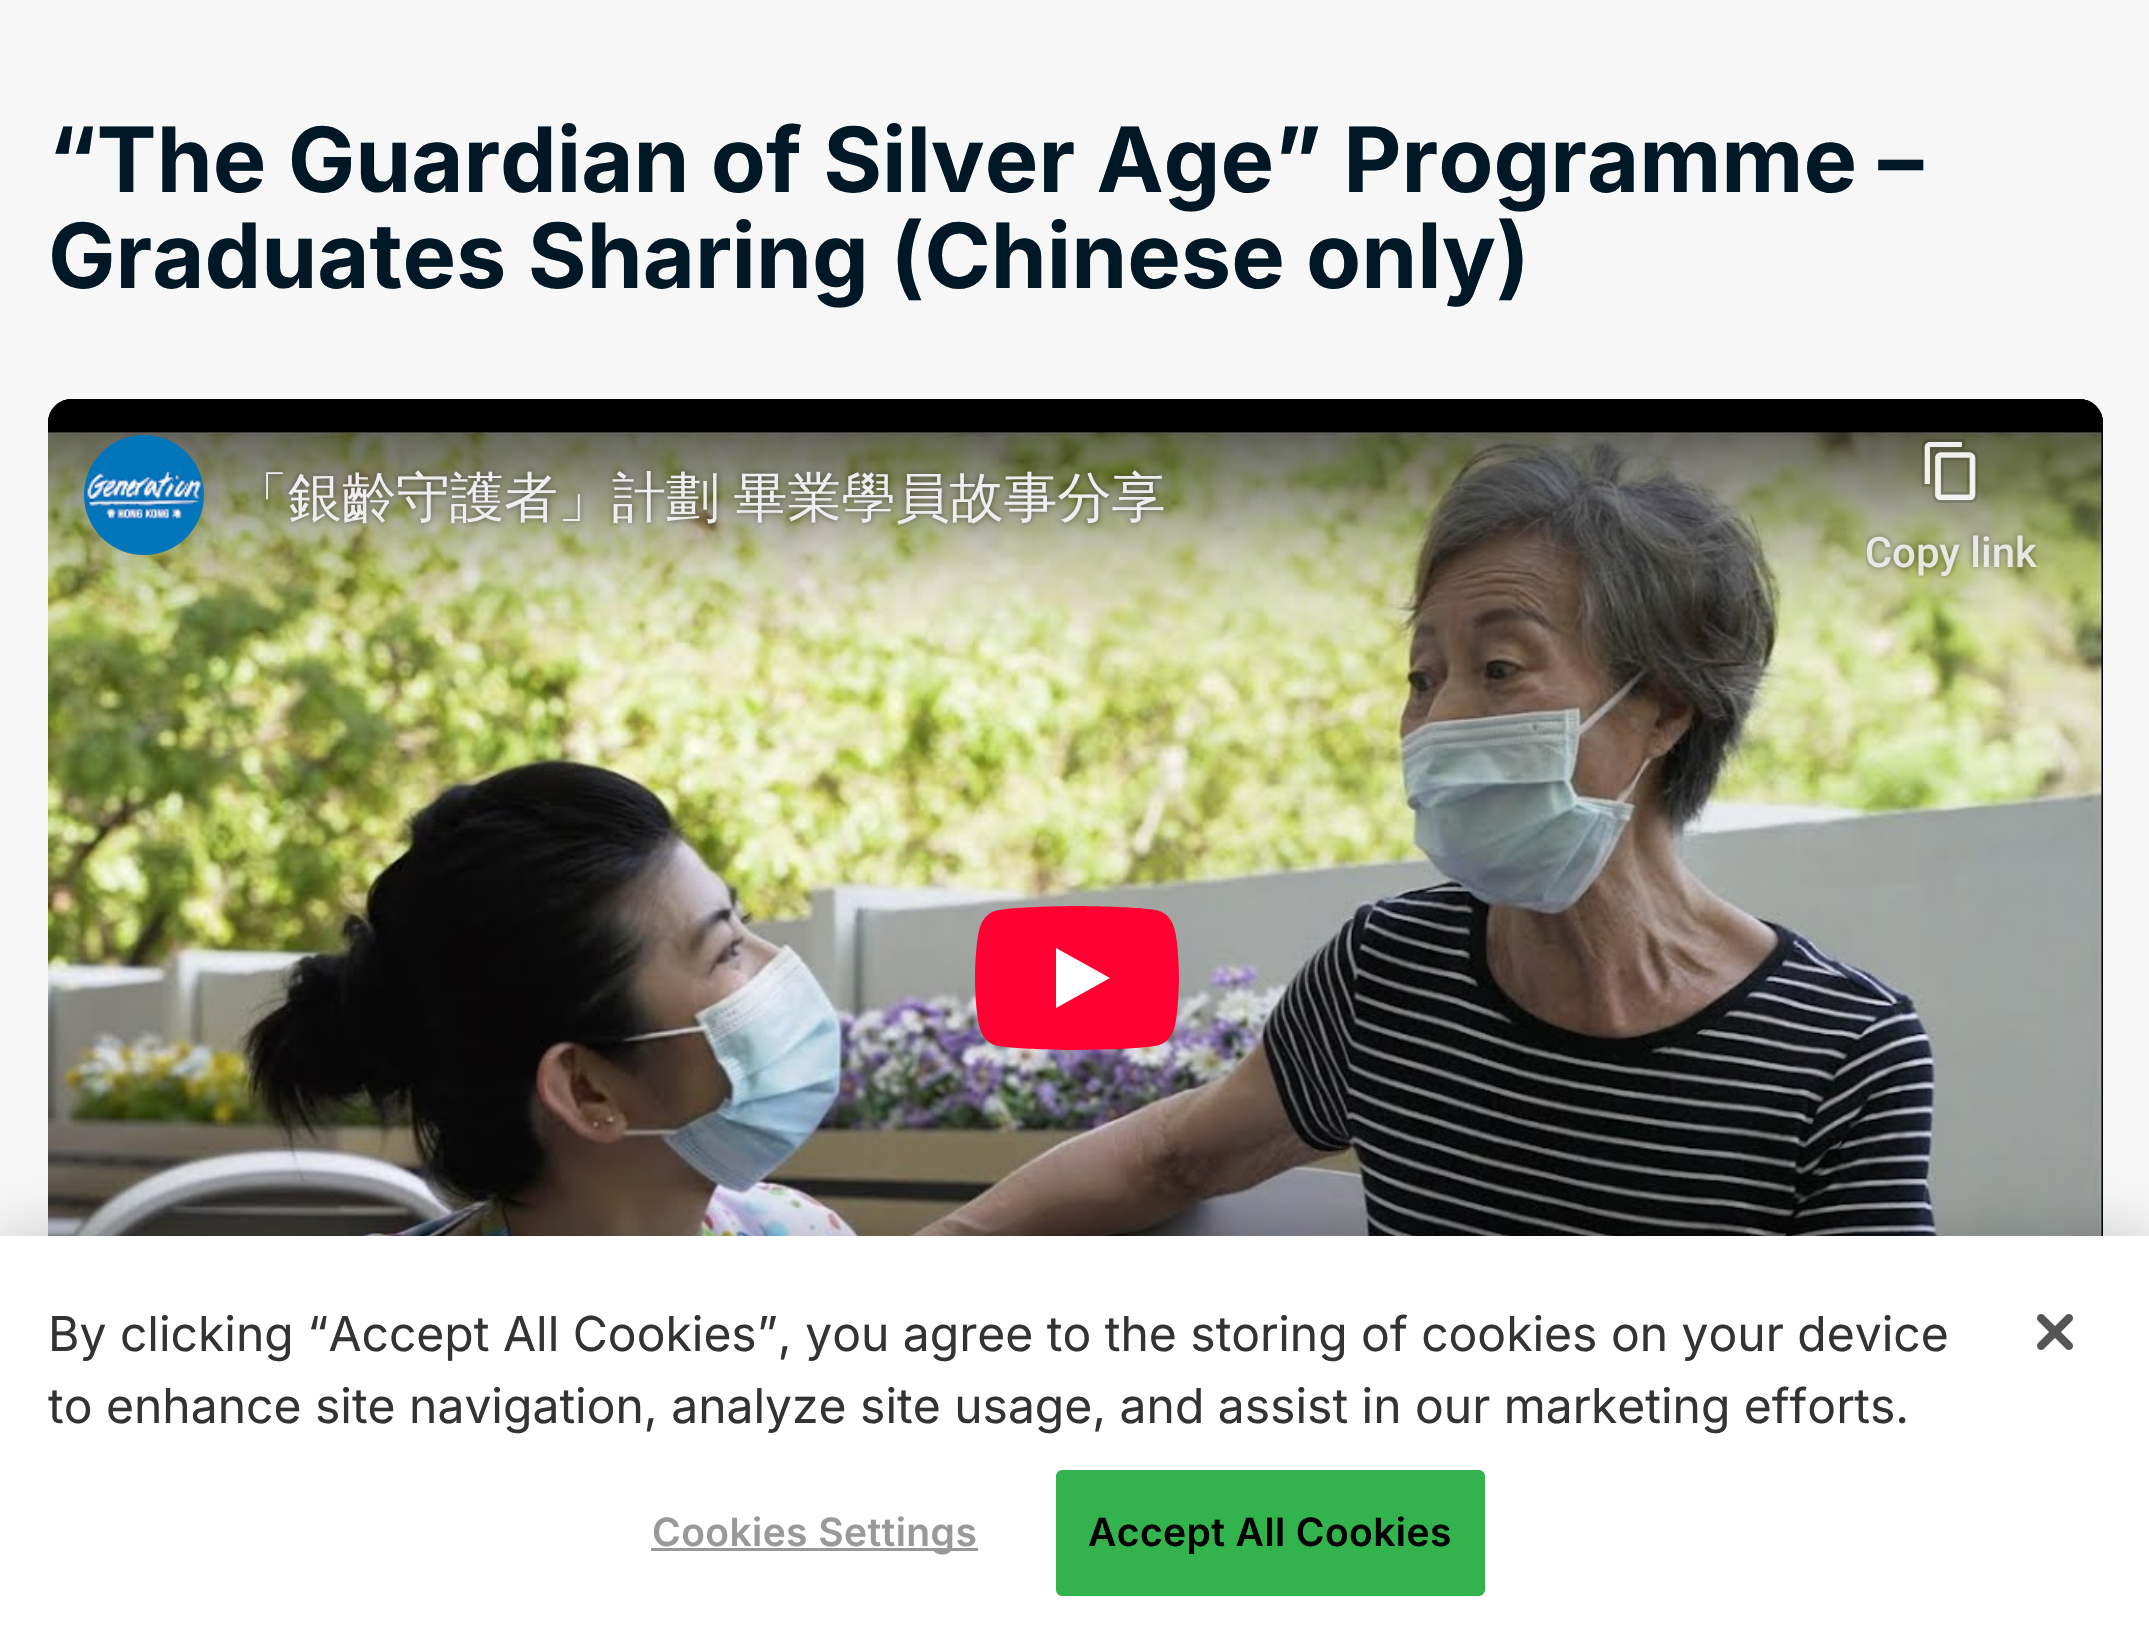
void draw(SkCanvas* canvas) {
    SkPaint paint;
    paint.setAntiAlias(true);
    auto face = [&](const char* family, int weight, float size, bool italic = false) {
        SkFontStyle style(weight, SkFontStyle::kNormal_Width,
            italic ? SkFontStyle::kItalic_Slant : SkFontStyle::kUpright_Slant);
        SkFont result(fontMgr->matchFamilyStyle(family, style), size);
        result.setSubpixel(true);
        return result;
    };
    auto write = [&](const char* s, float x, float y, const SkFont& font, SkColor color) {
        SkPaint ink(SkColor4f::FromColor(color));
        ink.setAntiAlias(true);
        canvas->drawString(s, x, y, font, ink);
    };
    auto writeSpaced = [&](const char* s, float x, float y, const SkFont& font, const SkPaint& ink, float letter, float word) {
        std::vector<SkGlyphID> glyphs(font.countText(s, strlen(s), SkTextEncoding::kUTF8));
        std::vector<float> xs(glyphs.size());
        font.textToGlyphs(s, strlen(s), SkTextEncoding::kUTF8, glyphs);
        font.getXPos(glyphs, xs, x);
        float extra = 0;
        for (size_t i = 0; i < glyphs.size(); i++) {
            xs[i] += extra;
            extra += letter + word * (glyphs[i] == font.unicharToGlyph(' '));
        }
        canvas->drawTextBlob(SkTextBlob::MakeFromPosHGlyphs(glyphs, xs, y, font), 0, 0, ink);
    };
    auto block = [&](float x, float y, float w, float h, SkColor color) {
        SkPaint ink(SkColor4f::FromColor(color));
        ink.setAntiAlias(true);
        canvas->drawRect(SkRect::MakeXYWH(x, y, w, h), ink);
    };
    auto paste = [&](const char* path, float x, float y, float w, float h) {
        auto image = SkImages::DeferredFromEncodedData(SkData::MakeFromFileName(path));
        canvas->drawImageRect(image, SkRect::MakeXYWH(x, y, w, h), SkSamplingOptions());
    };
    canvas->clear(SkColorSetRGB(247, 247, 248));
    auto kFont1 = face("Inter", 700, 90);
    write("“The Guardian of Silver Age” Programme –", 48, 192, kFont1, SkColorSetRGB(0, 23, 37));
    write("Graduates Sharing (Chinese only)", 48, 288, kFont1, SkColorSetRGB(0, 23, 37));
    paste("pic1.png", 48, 399, 2055, 837);
    paint.setColor(SkColorSetARGB(51, 0, 0, 0));
    paint.setMaskFilter(SkMaskFilter::MakeBlur(kNormal_SkBlurStyle, 27));
    canvas->drawRect(SkRect::MakeXYWH(0, 1236, 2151, 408), paint);
    paint.setMaskFilter(nullptr);
    block(0, 1236, 2149, 407, SK_ColorWHITE);
    auto kFont2 = face("Inter", 400, 48);
    write("By clicking “Accept All Cookies”, you agree to the storing of cookies on your device", 48, 1351, kFont2, SkColorSetRGB(51, 51, 51));
    write("to enhance site navigation, analyze site usage, and assist in our marketing efforts.", 48, 1423, kFont2, SkColorSetRGB(51, 51, 51));
    block(651, 1548, 327, 3, SkColorSetRGB(153, 153, 153));
    auto kFont3 = face("Inter", 600, 39);
    paint.setColor(SkColorSetRGB(153, 153, 153));
    writeSpaced("Cookies Settings", 652, 1546, kFont3, paint, 0.4f, 0);
    paint.setColor(SkColorSetRGB(50, 179, 77));
    canvas->drawRoundRect(SkRect::MakeXYWH(1057.5f, 1471.5f, 426, 123), 4.5f, 4.5f, paint);
    paint.setStyle(SkPaint::kStroke_Style);
    paint.setStrokeWidth(3);
    canvas->drawRoundRect(SkRect::MakeXYWH(1057.5f, 1471.5f, 426, 123), 4.5f, 4.5f, paint);
    paint.setStyle(SkPaint::kFill_Style);
    paint.setColor(SK_ColorBLACK);
    writeSpaced("Accept All Cookies", 1088, 1546, kFont3, paint, 0.4f, 0);
    paste("pic2.png", 2037, 1314, 36, 36);
}
